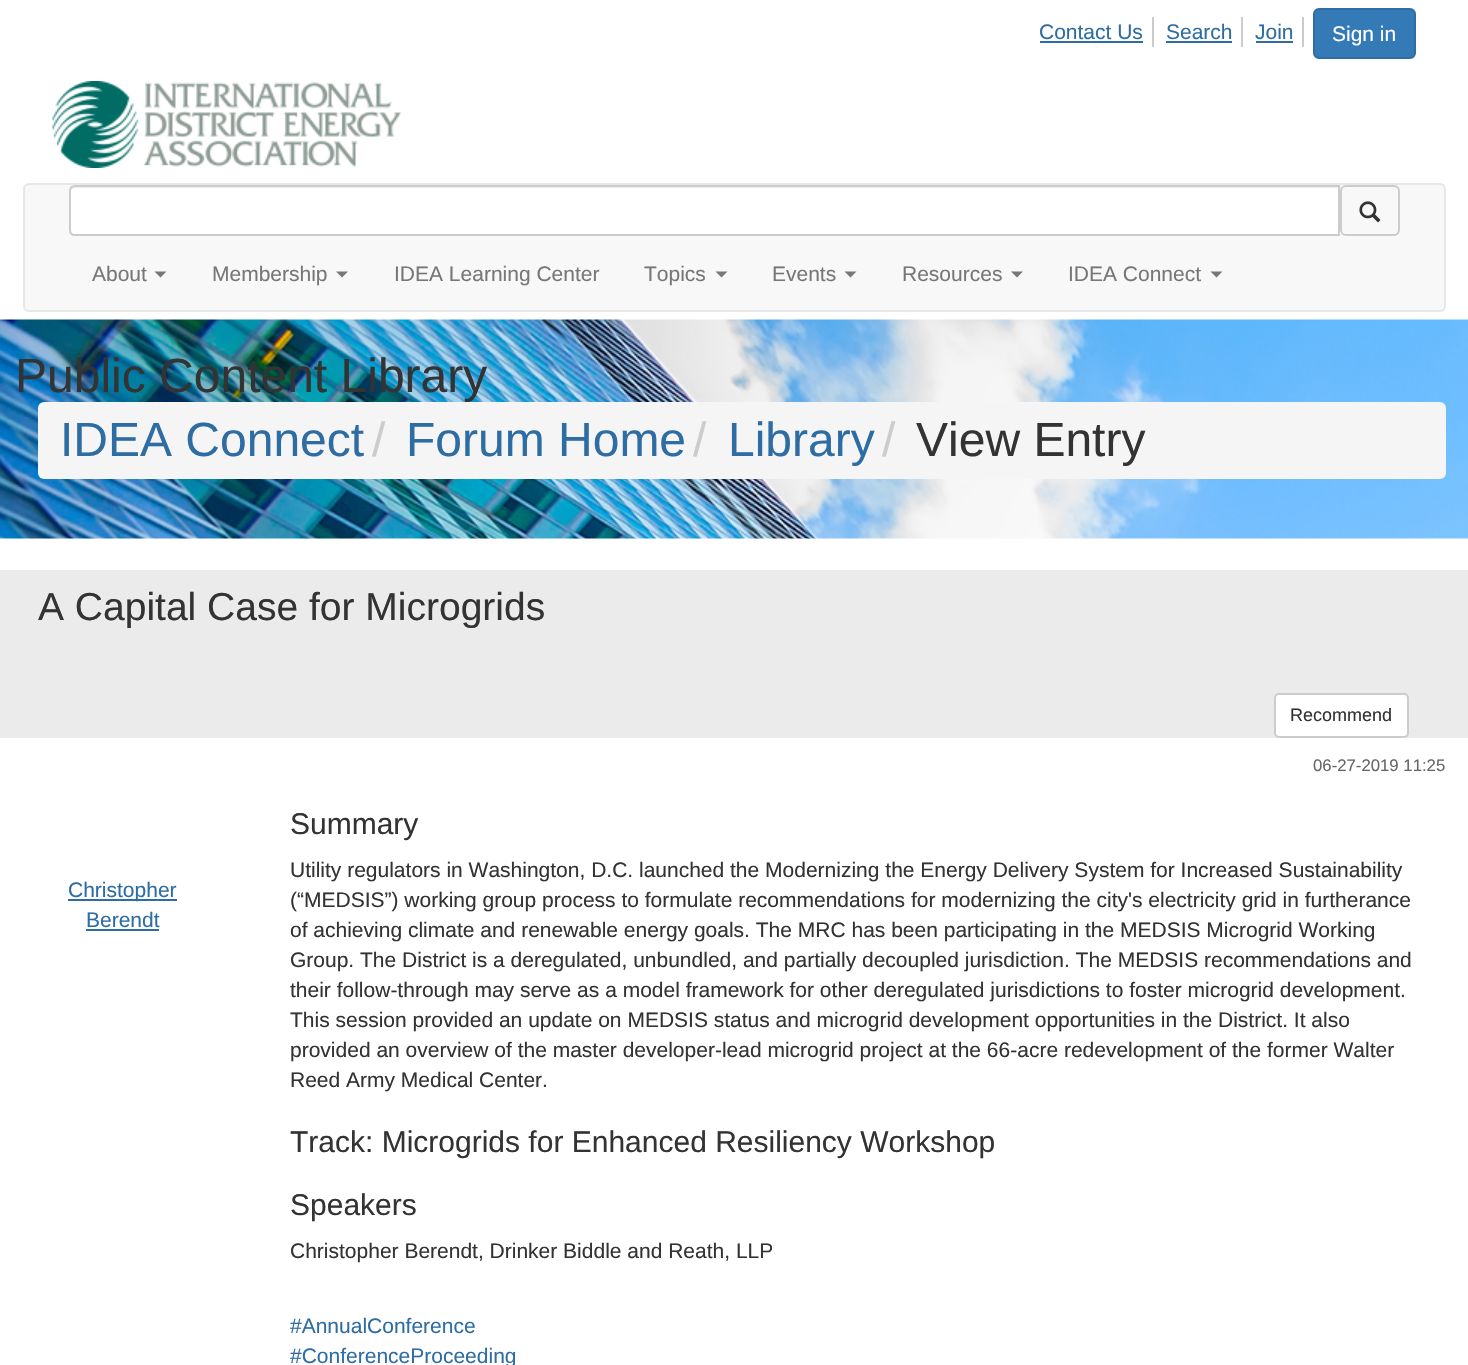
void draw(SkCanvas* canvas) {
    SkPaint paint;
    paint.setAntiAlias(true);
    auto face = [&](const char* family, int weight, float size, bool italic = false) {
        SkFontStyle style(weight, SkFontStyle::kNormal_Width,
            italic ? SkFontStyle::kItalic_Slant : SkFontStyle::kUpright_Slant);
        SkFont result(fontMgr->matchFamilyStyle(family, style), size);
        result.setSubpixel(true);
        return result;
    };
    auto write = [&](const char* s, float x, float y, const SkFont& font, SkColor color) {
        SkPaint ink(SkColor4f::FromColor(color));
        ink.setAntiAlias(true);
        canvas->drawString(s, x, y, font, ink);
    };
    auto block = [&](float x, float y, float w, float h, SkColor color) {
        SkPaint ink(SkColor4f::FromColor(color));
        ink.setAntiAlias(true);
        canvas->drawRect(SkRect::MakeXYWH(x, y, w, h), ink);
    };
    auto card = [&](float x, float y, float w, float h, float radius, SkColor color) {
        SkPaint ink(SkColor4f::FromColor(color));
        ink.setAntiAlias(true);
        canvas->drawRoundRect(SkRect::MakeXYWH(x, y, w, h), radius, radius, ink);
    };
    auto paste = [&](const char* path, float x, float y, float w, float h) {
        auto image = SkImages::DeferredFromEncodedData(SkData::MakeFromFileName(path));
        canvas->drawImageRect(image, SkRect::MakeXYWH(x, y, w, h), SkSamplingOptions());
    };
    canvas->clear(SK_ColorWHITE);
    block(1152, 17, 2, 30, SkColorSetRGB(204, 204, 204));
    auto kFont1 = face("Liberation Sans", 400, 21);
    write("Contact Us", 1039, 39, kFont1, SkColorSetRGB(46, 109, 164));
    block(1040, 41, 103, 2, SkColorSetRGB(46, 109, 164));
    block(1241, 17, 2, 30, SkColorSetRGB(204, 204, 204));
    write("Search", 1166, 39, kFont1, SkColorSetRGB(46, 109, 164));
    block(1166, 41, 66, 2, SkColorSetRGB(46, 109, 164));
    block(1302, 17, 2, 30, SkColorSetRGB(204, 204, 204));
    write("Join", 1255, 39, kFont1, SkColorSetRGB(46, 109, 164));
    block(1256, 41, 37, 2, SkColorSetRGB(46, 109, 164));
    paint.setColor(SkColorSetRGB(51, 122, 183));
    canvas->drawRoundRect(SkRect::MakeXYWH(1314, 9, 101, 49), 5, 5, paint);
    paint.setStyle(SkPaint::kStroke_Style);
    paint.setStrokeWidth(2);
    paint.setColor(SkColorSetRGB(46, 109, 164));
    canvas->drawRoundRect(SkRect::MakeXYWH(1314, 9, 101, 49), 5, 5, paint);
    write("Sign in", 1332, 41, kFont1, SK_ColorWHITE);
    paste("pic1.png", 52, 81, 349, 87);
    paint.setStyle(SkPaint::kFill_Style);
    paint.setColor(SkColorSetRGB(248, 248, 248));
    canvas->drawRoundRect(SkRect::MakeXYWH(24, 184, 1421, 127), 5, 5, paint);
    paint.setStyle(SkPaint::kStroke_Style);
    paint.setColor(SkColorSetRGB(231, 231, 231));
    canvas->drawRoundRect(SkRect::MakeXYWH(24, 184, 1421, 127), 5, 5, paint);
    paint.setStyle(SkPaint::kFill_Style);
    paint.setColor(SK_ColorWHITE);
    canvas->drawPath(SkPathBuilder().moveTo(75, 185).lineTo(1340, 185).lineTo(1340, 236).lineTo(75, 236).cubicTo(71.5f, 236, 69, 233.5f, 69, 230).lineTo(69, 191).cubicTo(69, 187.5f, 71.5f, 185, 75, 185).close().detach(), paint);
    paint.setColor(SkColorSetRGB(236, 236, 236));
    canvas->drawPath(SkPathBuilder().moveTo(75, 188).lineTo(1338, 188).lineTo(1338, 186).lineTo(76, 186).cubicTo(74, 186, 72, 188, 71, 190).cubicTo(72, 189, 74, 188, 75, 188).close().detach(), paint);
    paint.setStyle(SkPaint::kStroke_Style);
    paint.setColor(SkColorSetRGB(204, 204, 204));
    canvas->drawPath(SkPathBuilder().moveTo(75, 186).lineTo(1339, 186).lineTo(1339, 235).lineTo(75, 235).cubicTo(72, 235, 70, 233, 70, 230).lineTo(70, 191).cubicTo(70, 188, 72, 186, 75, 186).close().detach(), paint);
    canvas->drawRoundRect(SkRect::MakeXYWH(1341, 186, 58, 49), 5, 5, paint);
    paste("pic2.png", 1359, 201, 22, 22);
    write("About", 92, 281, kFont1, SkColorSetRGB(119, 119, 119));
    paint.setStyle(SkPaint::kFill_Style);
    paint.setColor(SkColorSetRGB(119, 119, 119));
    canvas->drawPath(SkPathBuilder().moveTo(154.5f, 271.5f).lineTo(166.5f, 271.5f).lineTo(160.5f, 277.5f).close().detach(), paint);
    write("Membership", 212, 281, kFont1, SkColorSetRGB(119, 119, 119));
    canvas->drawPath(SkPathBuilder().moveTo(336, 271.5f).lineTo(348, 271.5f).lineTo(342, 277.5f).close().detach(), paint);
    write("IDEA Learning Center", 394, 281, kFont1, SkColorSetRGB(119, 119, 119));
    write("Topics", 644, 281, kFont1, SkColorSetRGB(119, 119, 119));
    canvas->drawPath(SkPathBuilder().moveTo(715.5f, 271.5f).lineTo(727.5f, 271.5f).lineTo(721.5f, 277.5f).close().detach(), paint);
    write("Events", 772, 281, kFont1, SkColorSetRGB(119, 119, 119));
    canvas->drawPath(SkPathBuilder().moveTo(844.5f, 271.5f).lineTo(856.5f, 271.5f).lineTo(850.5f, 277.5f).close().detach(), paint);
    write("Resources", 902, 281, kFont1, SkColorSetRGB(119, 119, 119));
    canvas->drawPath(SkPathBuilder().moveTo(1011, 271.5f).lineTo(1023, 271.5f).lineTo(1017, 277.5f).close().detach(), paint);
    write("IDEA Connect", 1068, 281, kFont1, SkColorSetRGB(119, 119, 119));
    canvas->drawPath(SkPathBuilder().moveTo(1210.5f, 271.5f).lineTo(1222.5f, 271.5f).lineTo(1216.5f, 277.5f).close().detach(), paint);
    paste("pic3.png", 0, 319, 1468, 220);
    auto kFont2 = face("Liberation Sans", 400, 48);
    write("Public Content Library", 15, 392, kFont2, SkColorSetRGB(51, 51, 51));
    card(38, 402, 1408, 77, 6, SkColorSetRGB(245, 245, 245));
    write("IDEA Connect", 60, 456, kFont2, SkColorSetRGB(46, 109, 164));
    write("/", 372, 456, kFont2, SkColorSetRGB(204, 204, 204));
    write("Forum Home", 406, 456, kFont2, SkColorSetRGB(46, 109, 164));
    write("/", 693, 456, kFont2, SkColorSetRGB(204, 204, 204));
    write("Library", 728, 456, kFont2, SkColorSetRGB(46, 109, 164));
    write("/", 882, 456, kFont2, SkColorSetRGB(204, 204, 204));
    write("View Entry", 916, 456, kFont2, SkColorSetRGB(51, 51, 51));
    block(0, 570, 1468, 168, SkColorSetRGB(235, 235, 235));
    auto kFont3 = face("Liberation Sans", 400, 39);
    write("A Capital Case for Microgrids", 38, 620, kFont3, SkColorSetRGB(51, 51, 51));
    paint.setColor(SK_ColorWHITE);
    canvas->drawRoundRect(SkRect::MakeXYWH(1275, 694, 133, 43), 4, 4, paint);
    paint.setStyle(SkPaint::kStroke_Style);
    paint.setColor(SkColorSetRGB(204, 204, 204));
    canvas->drawRoundRect(SkRect::MakeXYWH(1275, 694, 133, 43), 4, 4, paint);
    auto kFont4 = face("Liberation Sans", 400, 18);
    write("Recommend", 1290, 721, kFont4, SkColorSetRGB(51, 51, 51));
    auto kFont5 = face("Liberation Sans", 400, 16.75f);
    write("06-27-2019 11:25", 1313, 771, kFont5, SkColorSetRGB(102, 102, 102));
    block(68, 899, 109, 2, SkColorSetRGB(46, 109, 164));
    write("Christopher", 68, 897, kFont1, SkColorSetRGB(46, 109, 164));
    write("Berendt", 86, 927, kFont1, SkColorSetRGB(46, 109, 164));
    block(86, 929, 73, 2, SkColorSetRGB(46, 109, 164));
    auto kFont6 = face("Liberation Sans", 400, 30);
    write("Summary", 290, 834, kFont6, SkColorSetRGB(51, 51, 51));
    write("Utility regulators in Washington, D.C. launched the Modernizing the Energy Delivery System for Increased Sustainability", 290, 877, kFont1, SkColorSetRGB(51, 51, 51));
    write("(“MEDSIS”) working group process to formulate recommendations for modernizing the city's electricity grid in furtherance", 290, 907, kFont1, SkColorSetRGB(51, 51, 51));
    write("of achieving climate and renewable energy goals. The MRC has been participating in the MEDSIS Microgrid Working", 290, 937, kFont1, SkColorSetRGB(51, 51, 51));
    write("Group. The District is a deregulated, unbundled, and partially decoupled jurisdiction. The MEDSIS recommendations and", 290, 967, kFont1, SkColorSetRGB(51, 51, 51));
    write("their follow-through may serve as a model framework for other deregulated jurisdictions to foster microgrid development.", 290, 997, kFont1, SkColorSetRGB(51, 51, 51));
    write("This session provided an update on MEDSIS status and microgrid development opportunities in the District. It also", 290, 1027, kFont1, SkColorSetRGB(51, 51, 51));
    write("provided an overview of the master developer-lead microgrid project at the 66-acre redevelopment of the former Walter", 290, 1057, kFont1, SkColorSetRGB(51, 51, 51));
    write("Reed Army Medical Center.", 290, 1087, kFont1, SkColorSetRGB(51, 51, 51));
    write("Track: Microgrids for Enhanced Resiliency Workshop", 290, 1152, kFont6, SkColorSetRGB(51, 51, 51));
    write("Speakers", 290, 1215, kFont6, SkColorSetRGB(51, 51, 51));
    write("Christopher Berendt, Drinker Biddle and Reath, LLP", 290, 1258, kFont1, SkColorSetRGB(51, 51, 51));
    write("#AnnualConference", 290, 1333, kFont1, SkColorSetRGB(46, 109, 164));
    write("#ConferenceProceeding", 290, 1363, kFont1, SkColorSetRGB(46, 109, 164));
}
